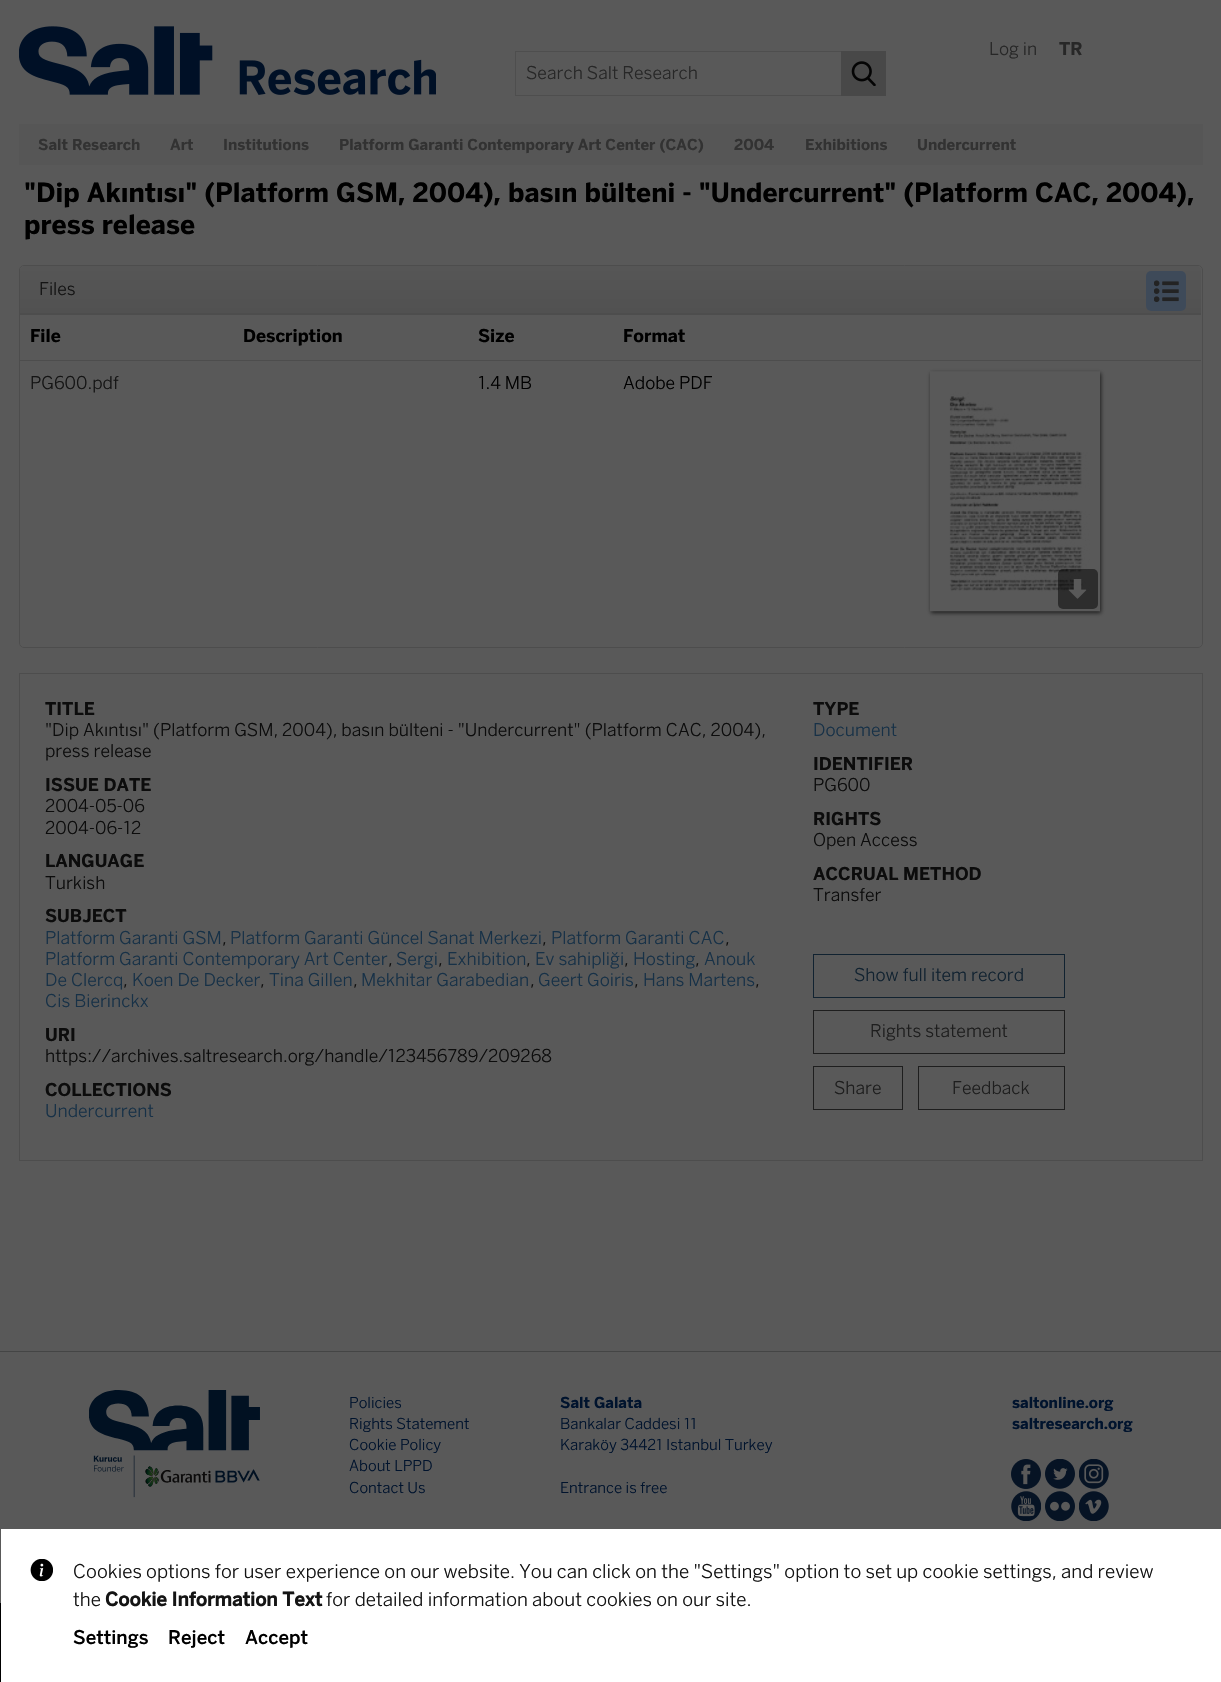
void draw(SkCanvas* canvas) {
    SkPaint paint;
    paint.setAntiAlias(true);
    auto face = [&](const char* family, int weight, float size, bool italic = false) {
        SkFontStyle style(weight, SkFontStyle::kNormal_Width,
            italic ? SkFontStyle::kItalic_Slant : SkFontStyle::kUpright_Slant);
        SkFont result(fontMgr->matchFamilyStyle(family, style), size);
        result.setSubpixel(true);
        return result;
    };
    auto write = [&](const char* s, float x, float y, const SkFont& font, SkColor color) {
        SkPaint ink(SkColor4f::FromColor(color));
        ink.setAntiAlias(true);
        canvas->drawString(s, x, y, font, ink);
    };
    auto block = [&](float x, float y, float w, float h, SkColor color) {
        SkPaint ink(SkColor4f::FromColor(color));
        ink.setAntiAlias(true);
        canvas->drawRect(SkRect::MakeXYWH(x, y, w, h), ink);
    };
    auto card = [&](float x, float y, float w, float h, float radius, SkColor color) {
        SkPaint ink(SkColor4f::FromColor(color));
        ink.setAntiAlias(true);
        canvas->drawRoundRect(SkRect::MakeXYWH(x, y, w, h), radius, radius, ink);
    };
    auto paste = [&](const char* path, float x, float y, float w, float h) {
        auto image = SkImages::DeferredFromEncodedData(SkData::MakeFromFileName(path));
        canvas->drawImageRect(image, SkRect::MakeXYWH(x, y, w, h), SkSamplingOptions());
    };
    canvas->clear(SkColorSetRGB(89, 89, 89));
    paste("pic1.png", 19, 26, 417, 69);
    auto kFont1 = face("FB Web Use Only", 300, 17.5f);
    write("Log in", 989, 55, kFont1, SkColorSetRGB(39, 39, 39));
    auto kFont2 = face("FB Web Use Only", 700, 17.5f);
    write("TR", 1059, 55, kFont2, SkColorSetRGB(39, 39, 39));
    block(515, 51, 330, 1, SkColorSetRGB(78, 78, 78));
    block(515, 95, 330, 1, SkColorSetRGB(78, 78, 78));
    block(515, 51, 1, 45, SkColorSetRGB(78, 78, 78));
    write("Search Salt Research", 526, 79, kFont1, SkColorSetRGB(39, 39, 39));
    block(841, 51, 45, 45, SkColorSetRGB(72, 72, 72));
    paste("pic2.png", 851, 61, 25, 25);
    block(19, 124, 1184, 41, SkColorSetRGB(86, 86, 86));
    auto kFont3 = face("FB Web Use Only", 700, 15);
    write("Salt Research", 38, 150, kFont3, SkColorSetRGB(50, 50, 50));
    write("Art", 170, 150, kFont3, SkColorSetRGB(50, 50, 50));
    write("Institutions", 223, 150, kFont3, SkColorSetRGB(50, 50, 50));
    write("Platform Garanti Contemporary Art Center (CAC)", 339, 150, kFont3, SkColorSetRGB(50, 50, 50));
    write("2004", 734, 150, kFont3, SkColorSetRGB(50, 50, 50));
    write("Exhibitions", 805, 150, kFont3, SkColorSetRGB(50, 50, 50));
    write("Undercurrent", 917, 150, kFont3, SkColorSetRGB(50, 50, 50));
    auto kFont4 = face("FB Web Use Only", 700, 26.25f);
    write("\"Dip Akıntısı\" (Platform GSM, 2004), basın bülteni - \"Undercurrent\" (Platform CAC, 2004),", 24, 202, kFont4, SK_ColorBLACK);
    write("press release", 24, 234, kFont4, SK_ColorBLACK);
    paint.setStyle(SkPaint::kStroke_Style);
    paint.setStrokeWidth(1);
    paint.setColor(SkColorSetRGB(77, 77, 77));
    canvas->drawRoundRect(SkRect::MakeXYWH(19.5f, 265.5f, 1183, 382), 4.5f, 4.5f, paint);
    paint.setStyle(SkPaint::kFill_Style);
    {
        const SkColor colors[] = {SkColorSetRGB(86, 86, 86), SkColorSetRGB(81, 81, 81)};
        const float stops[] = {0, 1};
        const SkPoint ends[] = {{611, 266}, {611, 313}};
        paint.setShader(SkGradientShader::MakeLinear(ends, colors, stops, 2, SkTileMode::kClamp));
        paint.setAlpha(255);
    }
    canvas->drawPath(SkPathBuilder().moveTo(24, 266).lineTo(1197, 266).cubicTo(1199, 266, 1201, 268, 1201, 270).lineTo(1201, 313).lineTo(20, 313).lineTo(20, 270).cubicTo(20, 268, 22, 266, 24, 266).close().detach(), paint);
    write("Files", 39, 295, kFont1, SkColorSetRGB(20, 20, 20));
    card(1146, 271, 40, 40, 5, SkColorSetRGB(62, 74, 89));
    paste("pic3.png", 1154, 280, 25, 23);
    block(20, 313, 1181, 2, SkColorSetRGB(77, 77, 77));
    write("File", 30, 342, kFont2, SK_ColorBLACK);
    write("Description", 243, 342, kFont2, SK_ColorBLACK);
    write("Size", 478, 342, kFont2, SK_ColorBLACK);
    write("Format", 623, 342, kFont2, SK_ColorBLACK);
    block(20, 360, 1181, 1, SkColorSetRGB(77, 77, 77));
    paint.setShader(nullptr);
    paint.setColor(SkColorSetRGB(30, 30, 30));
    paint.setMaskFilter(SkMaskFilter::MakeBlur(kNormal_SkBlurStyle, 2));
    canvas->drawRect(SkRect::MakeXYWH(931, 373, 170, 240), paint);
    paint.setMaskFilter(nullptr);
    paste("pic4.png", 930, 371, 170, 241);
    card(1058, 569, 40, 40, 5, SkColorSetARGB(128, 0, 0, 0));
    paste("pic5.png", 1068, 579, 19, 20);
    write("PG600.pdf", 30, 389, kFont1, SkColorSetRGB(20, 20, 20));
    write("1.4 MB", 478, 389, kFont1, SK_ColorBLACK);
    write("Adobe PDF", 623, 389, kFont1, SK_ColorBLACK);
    paint.setStyle(SkPaint::kStroke_Style);
    paint.setColor(SkColorSetRGB(77, 77, 77));
    canvas->drawRect(SkRect::MakeXYWH(19.5f, 673.5f, 1183, 487), paint);
    write("TITLE", 45, 715, kFont2, SkColorSetRGB(12, 12, 12));
    write("\"Dip Akıntısı\" (Platform GSM, 2004), basın bülteni - \"Undercurrent\" (Platform CAC, 2004),", 45, 736, kFont1, SkColorSetRGB(12, 12, 12));
    write("press release", 45, 757, kFont1, SkColorSetRGB(12, 12, 12));
    write("ISSUE DATE", 45, 791, kFont2, SkColorSetRGB(12, 12, 12));
    write("2004-05-06", 45, 812, kFont1, SkColorSetRGB(12, 12, 12));
    write("2004-06-12", 45, 834, kFont1, SkColorSetRGB(12, 12, 12));
    write("LANGUAGE", 45, 867, kFont2, SkColorSetRGB(12, 12, 12));
    write("Turkish", 45, 889, kFont1, SkColorSetRGB(12, 12, 12));
    write("SUBJECT", 45, 922, kFont2, SkColorSetRGB(12, 12, 12));
    write("Platform Garanti GSM", 45, 944, kFont1, SkColorSetRGB(23, 49, 71));
    write(",", 222, 944, kFont1, SkColorSetRGB(12, 12, 12));
    write("Platform Garanti Güncel Sanat Merkezi", 230, 944, kFont1, SkColorSetRGB(23, 49, 71));
    write(",", 542, 944, kFont1, SkColorSetRGB(12, 12, 12));
    write("Platform Garanti CAC", 551, 944, kFont1, SkColorSetRGB(23, 49, 71));
    write(",", 725, 944, kFont1, SkColorSetRGB(12, 12, 12));
    write("Platform Garanti Contemporary Art Center", 45, 965, kFont1, SkColorSetRGB(23, 49, 71));
    write(",", 388, 965, kFont1, SkColorSetRGB(12, 12, 12));
    write("Sergi", 396, 965, kFont1, SkColorSetRGB(23, 49, 71));
    write(",", 438, 965, kFont1, SkColorSetRGB(12, 12, 12));
    write("Exhibition", 447, 965, kFont1, SkColorSetRGB(23, 49, 71));
    write(",", 526, 965, kFont1, SkColorSetRGB(12, 12, 12));
    write("Ev sahipliği", 535, 965, kFont1, SkColorSetRGB(23, 49, 71));
    write(",", 624, 965, kFont1, SkColorSetRGB(12, 12, 12));
    write("Hosting", 633, 965, kFont1, SkColorSetRGB(23, 49, 71));
    write(",", 695, 965, kFont1, SkColorSetRGB(12, 12, 12));
    write("Anouk", 704, 965, kFont1, SkColorSetRGB(23, 49, 71));
    write("De Clercq", 45, 986, kFont1, SkColorSetRGB(23, 49, 71));
    write(",", 123, 986, kFont1, SkColorSetRGB(12, 12, 12));
    write("Koen De Decker", 132, 986, kFont1, SkColorSetRGB(23, 49, 71));
    write(",", 260, 986, kFont1, SkColorSetRGB(12, 12, 12));
    write("Tina Gillen", 269, 986, kFont1, SkColorSetRGB(23, 49, 71));
    write(",", 353, 986, kFont1, SkColorSetRGB(12, 12, 12));
    write("Mekhitar Garabedian", 361, 986, kFont1, SkColorSetRGB(23, 49, 71));
    write(",", 530, 986, kFont1, SkColorSetRGB(12, 12, 12));
    write("Geert Goiris", 538, 986, kFont1, SkColorSetRGB(23, 49, 71));
    write(",", 634, 986, kFont1, SkColorSetRGB(12, 12, 12));
    write("Hans Martens", 643, 986, kFont1, SkColorSetRGB(23, 49, 71));
    write(",", 755, 986, kFont1, SkColorSetRGB(12, 12, 12));
    write("Cis Bierinckx", 45, 1007, kFont1, SkColorSetRGB(23, 49, 71));
    write("URI", 45, 1041, kFont2, SkColorSetRGB(12, 12, 12));
    write("https://archives.saltresearch.org/handle/123456789/209268", 45, 1062, kFont1, SkColorSetRGB(12, 12, 12));
    write("COLLECTIONS", 45, 1096, kFont2, SkColorSetRGB(12, 12, 12));
    write("Undercurrent", 45, 1117, kFont1, SkColorSetRGB(23, 49, 71));
    write("TYPE", 813, 715, kFont2, SkColorSetRGB(12, 12, 12));
    write("Document", 813, 736, kFont1, SkColorSetRGB(23, 49, 71));
    write("IDENTIFIER", 813, 770, kFont2, SkColorSetRGB(12, 12, 12));
    write("PG600", 813, 791, kFont1, SkColorSetRGB(12, 12, 12));
    write("RIGHTS", 813, 825, kFont2, SkColorSetRGB(12, 12, 12));
    write("Open Access", 813, 846, kFont1, SkColorSetRGB(12, 12, 12));
    write("ACCRUAL METHOD", 813, 880, kFont2, SkColorSetRGB(12, 12, 12));
    write("Transfer", 813, 901, kFont1, SkColorSetRGB(12, 12, 12));
    paint.setColor(SkColorSetRGB(17, 34, 48));
    canvas->drawRect(SkRect::MakeXYWH(813.5f, 954.5f, 251, 43), paint);
    write("Show full item record", 854, 981, kFont1, SkColorSetRGB(17, 34, 48));
    paint.setColor(SkColorSetRGB(30, 30, 30));
    canvas->drawRect(SkRect::MakeXYWH(813.5f, 1010.5f, 251, 43), paint);
    write("Rights statement", 870, 1037, kFont1, SkColorSetRGB(30, 30, 30));
    canvas->drawRect(SkRect::MakeXYWH(813.5f, 1066.5f, 89, 43), paint);
    write("Share", 834, 1094, kFont1, SkColorSetRGB(30, 30, 30));
    canvas->drawRect(SkRect::MakeXYWH(918.5f, 1066.5f, 146, 43), paint);
    write("Feedback", 952, 1094, kFont1, SkColorSetRGB(30, 30, 30));
    block(0, 1351, 1221, 1, SkColorSetRGB(68, 69, 69));
    paste("pic6.png", 89, 1390, 171, 108);
    auto kFont5 = face("FB Web Use Only", 300, 15);
    write("Policies", 349, 1408, kFont5, SkColorSetRGB(0, 19, 45));
    write("Rights Statement", 349, 1429, kFont5, SkColorSetRGB(0, 19, 45));
    write("Cookie Policy", 349, 1450, kFont5, SkColorSetRGB(0, 19, 45));
    write("About LPPD", 349, 1471, kFont5, SkColorSetRGB(0, 19, 45));
    write("Contact Us", 349, 1493, kFont5, SkColorSetRGB(0, 19, 45));
    write("Salt Galata", 560, 1408, kFont3, SkColorSetRGB(0, 19, 45));
    write("Bankalar Caddesi 11", 560, 1429, kFont5, SkColorSetRGB(0, 19, 45));
    write("Karaköy 34421 Istanbul Turkey", 560, 1450, kFont5, SkColorSetRGB(0, 19, 45));
    write("Entrance is free", 560, 1493, kFont5, SkColorSetRGB(0, 19, 45));
    write("saltonline.org", 1012, 1408, kFont3, SkColorSetRGB(0, 19, 45));
    write("saltresearch.org", 1012, 1429, kFont3, SkColorSetRGB(0, 19, 45));
    paste("pic7.png", 1011, 1459, 30, 30);
    paste("pic8.png", 1045, 1459, 30, 30);
    paste("pic9.png", 1079, 1459, 30, 30);
    paste("pic10.png", 1011, 1491, 30, 30);
    paste("pic11.png", 1045, 1491, 30, 30);
    paste("pic12.png", 1079, 1491, 30, 30);
    block(0, 1603, 1, 79, SK_ColorBLACK);
    block(1, 1529, 1220, 153, SK_ColorWHITE);
    paste("pic13.png", 30, 1559, 23, 22);
    auto kFont6 = face("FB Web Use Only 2", 300, 18.75f);
    write("Cookies options for user experience on our website. You can click on the \"Settings\" option to set up cookie settings, and review", 73, 1578, kFont6, SkColorSetRGB(20, 20, 20));
    write("the", 73, 1606, kFont6, SkColorSetRGB(20, 20, 20));
    auto kFont7 = face("FB Web Use Only 2", 700, 18.75f);
    write("Cookie Information Text", 105, 1606, kFont7, SkColorSetRGB(20, 20, 20));
    write("for detailed information about cookies on our site.", 326, 1606, kFont6, SkColorSetRGB(20, 20, 20));
    auto kFont8 = face("FB Web Use Only", 500, 18.75f);
    write("Settings", 73, 1644, kFont8, SK_ColorBLACK);
    write("Reject", 168, 1644, kFont8, SK_ColorBLACK);
    write("Accept", 245, 1644, kFont8, SK_ColorBLACK);
}
